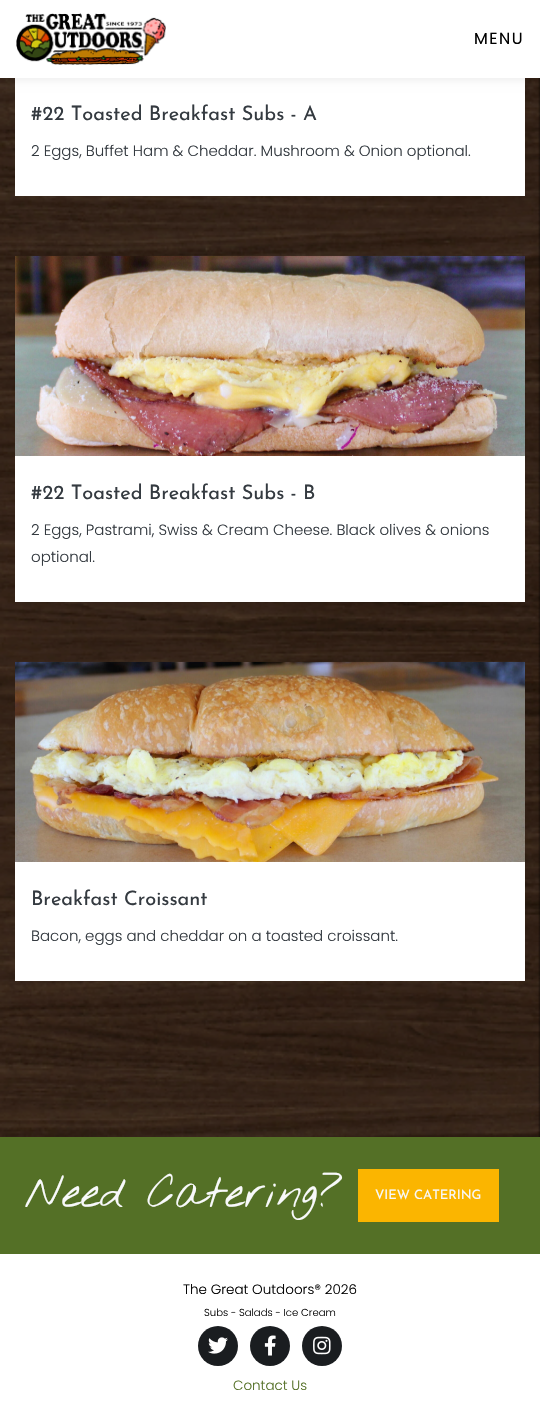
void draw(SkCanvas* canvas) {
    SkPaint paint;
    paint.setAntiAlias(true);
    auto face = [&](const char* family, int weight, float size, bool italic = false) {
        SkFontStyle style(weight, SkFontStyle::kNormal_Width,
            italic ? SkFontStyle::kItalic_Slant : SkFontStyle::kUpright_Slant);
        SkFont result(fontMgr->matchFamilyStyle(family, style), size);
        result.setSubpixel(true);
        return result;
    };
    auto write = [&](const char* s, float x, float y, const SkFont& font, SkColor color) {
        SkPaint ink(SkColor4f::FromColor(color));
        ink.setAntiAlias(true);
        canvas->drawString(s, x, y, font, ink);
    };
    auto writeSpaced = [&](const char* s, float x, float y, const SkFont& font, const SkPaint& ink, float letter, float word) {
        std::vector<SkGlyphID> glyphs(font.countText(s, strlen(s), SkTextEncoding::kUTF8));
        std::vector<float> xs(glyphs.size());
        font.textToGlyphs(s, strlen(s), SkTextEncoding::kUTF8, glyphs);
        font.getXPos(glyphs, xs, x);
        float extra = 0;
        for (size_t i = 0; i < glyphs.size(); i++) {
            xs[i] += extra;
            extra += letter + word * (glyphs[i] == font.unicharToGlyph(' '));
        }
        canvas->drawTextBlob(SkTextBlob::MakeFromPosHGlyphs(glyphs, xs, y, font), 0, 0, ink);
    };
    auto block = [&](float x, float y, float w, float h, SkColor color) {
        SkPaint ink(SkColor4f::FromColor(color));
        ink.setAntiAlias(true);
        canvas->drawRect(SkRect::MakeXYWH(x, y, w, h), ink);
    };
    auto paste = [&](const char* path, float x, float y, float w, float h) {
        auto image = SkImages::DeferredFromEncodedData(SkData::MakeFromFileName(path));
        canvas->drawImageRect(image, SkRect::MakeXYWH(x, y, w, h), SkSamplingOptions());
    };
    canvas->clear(SK_ColorBLACK);
    paste("pic2.png", 0, 78, 540, 1059);
    block(15, 78, 510, 118, SK_ColorWHITE);
    paint.setColor(SkColorSetARGB(26, 0, 0, 0));
    paint.setMaskFilter(SkMaskFilter::MakeBlur(kNormal_SkBlurStyle, 5));
    canvas->drawRect(SkRect::MakeXYWH(0, 0, 540, 78), paint);
    paint.setMaskFilter(nullptr);
    block(0, 0, 540, 78, SK_ColorWHITE);
    paste("pic1.png", 16, 13, 150, 52);
    auto kFont1 = face("Poppins", 400, 16);
    paint.setColor(SK_ColorBLACK);
    writeSpaced("MENU", 474, 44, kFont1, paint, 1.5f, 0);
    auto kFont2 = face("Josefin Sans", 400, 20);
    write("#22 Toasted Breakfast Subs - A", 31, 120, kFont2, SkColorSetRGB(52, 58, 64));
    auto kFont3 = face("Poppins", 300, 15);
    write("2 Eggs, Buffet Ham & Cheddar. Mushroom & Onion optional.", 31, 156, kFont3, SkColorSetRGB(52, 58, 64));
    block(15, 456, 510, 146, SK_ColorWHITE);
    paste("pic3.png", 15, 255, 510, 201);
    write("#22 Toasted Breakfast Subs - B", 31, 499, kFont2, SkColorSetRGB(52, 58, 64));
    write("2 Eggs, Pastrami, Swiss & Cream Cheese. Black olives & onions", 31, 535, kFont3, SkColorSetRGB(52, 58, 64));
    write("optional.", 31, 562, kFont3, SkColorSetRGB(52, 58, 64));
    block(15, 862, 510, 119, SK_ColorWHITE);
    paste("pic4.png", 15, 661, 510, 201);
    write("Breakfast Croissant", 31, 905, kFont2, SkColorSetRGB(52, 58, 64));
    write("Bacon, eggs and cheddar on a toasted croissant.", 31, 941, kFont3, SkColorSetRGB(52, 58, 64));
    block(0, 1137, 540, 117, SkColorSetRGB(84, 112, 38));
    auto kFont4 = face("Nothing You Could Do", 100, 45);
    write("Need Catering?", 25, 1207, kFont4, SkColorSetRGB(248, 249, 250));
    block(358, 1169, 141, 53, SkColorSetRGB(251, 181, 0));
    auto kFont5 = face("Josefin Sans", 400, 13);
    write("VIEW CATERING", 375, 1199, kFont5, SkColorSetRGB(248, 249, 250));
    block(0, 1254, 540, 168, SK_ColorWHITE);
    auto kFont6 = face("Poppins", 300, 13.5f);
    write("The Great Outdoors® 2026", 183, 1294, kFont6, SK_ColorBLACK);
    auto kFont7 = face("Poppins", 300, 10.1f);
    write("Subs - Salads - Ice Cream", 204, 1316, kFont7, SK_ColorBLACK);
    paint.setColor(SkColorSetRGB(26, 29, 32));
    canvas->drawCircle(218, 1346, 20, paint);
    paste("pic5.png", 208, 1337, 20, 17);
    canvas->drawCircle(270, 1346, 20, paint);
    paste("pic6.png", 264, 1335, 12, 21);
    canvas->drawCircle(322, 1346, 20, paint);
    paste("pic7.png", 313, 1336, 18, 19);
    write("Contact Us", 233, 1390, kFont6, SkColorSetRGB(84, 112, 38));
}
